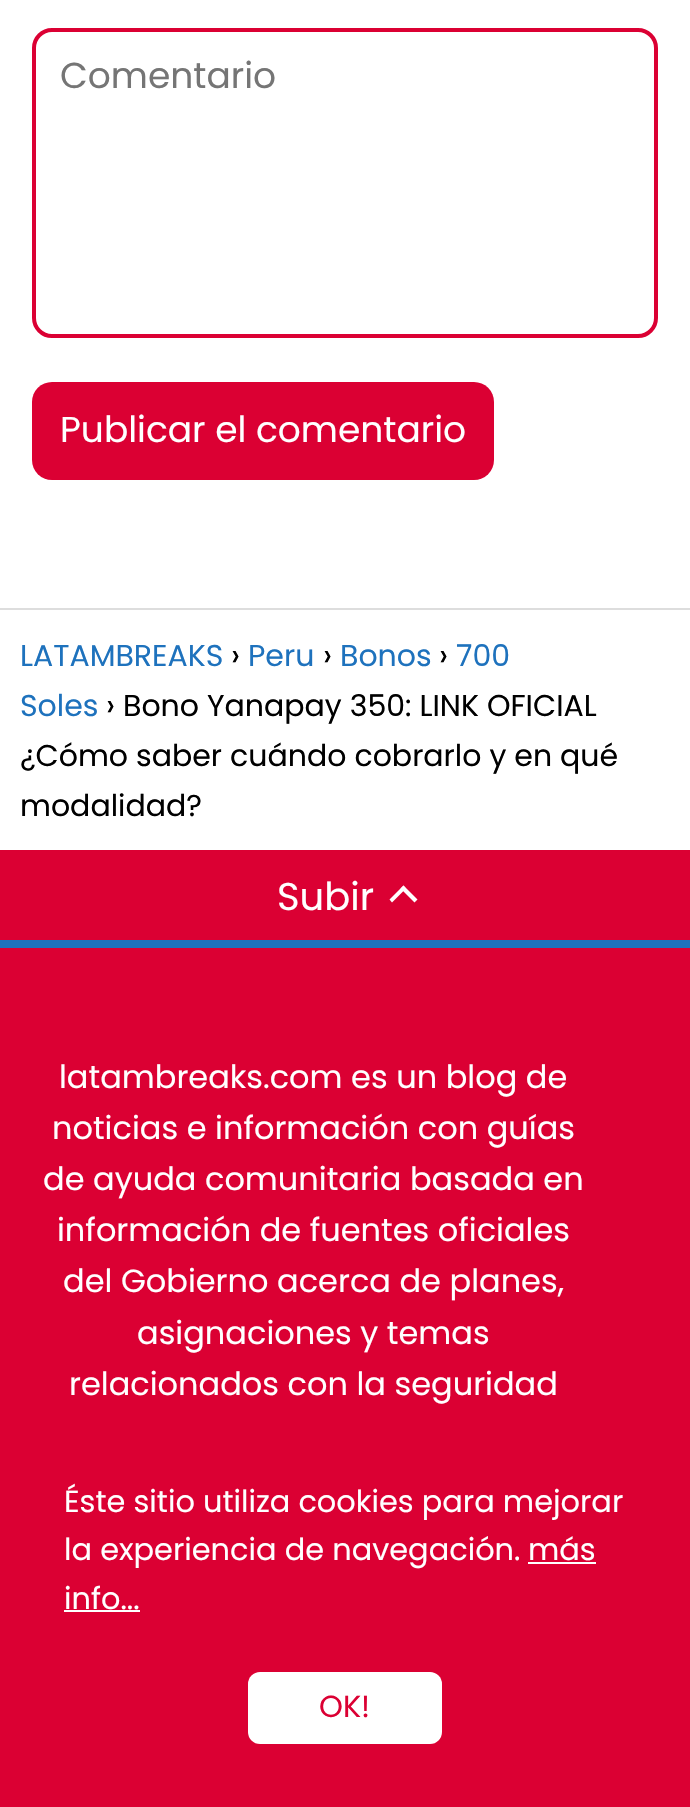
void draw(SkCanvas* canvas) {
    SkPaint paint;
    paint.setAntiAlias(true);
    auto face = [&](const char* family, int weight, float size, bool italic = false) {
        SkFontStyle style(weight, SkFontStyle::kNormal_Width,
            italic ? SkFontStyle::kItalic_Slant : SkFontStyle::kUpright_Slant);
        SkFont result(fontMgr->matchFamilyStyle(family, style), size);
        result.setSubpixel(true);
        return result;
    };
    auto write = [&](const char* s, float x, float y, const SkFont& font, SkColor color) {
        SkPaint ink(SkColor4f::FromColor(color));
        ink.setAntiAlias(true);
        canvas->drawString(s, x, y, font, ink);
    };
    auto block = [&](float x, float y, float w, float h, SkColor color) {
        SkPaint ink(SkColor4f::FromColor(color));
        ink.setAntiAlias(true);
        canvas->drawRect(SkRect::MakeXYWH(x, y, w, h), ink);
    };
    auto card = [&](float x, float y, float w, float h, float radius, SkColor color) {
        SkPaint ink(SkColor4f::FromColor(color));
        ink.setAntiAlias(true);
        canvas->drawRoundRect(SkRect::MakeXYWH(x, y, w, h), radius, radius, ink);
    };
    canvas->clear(SK_ColorWHITE);
    paint.setStyle(SkPaint::kStroke_Style);
    paint.setStrokeWidth(4);
    paint.setColor(SkColorSetRGB(219, 0, 51));
    canvas->drawRoundRect(SkRect::MakeXYWH(34, 30, 622, 306), 18, 18, paint);
    auto kFont1 = face("Poppins", 400, 36);
    write("Comentario", 60, 88, kFont1, SkColorSetRGB(117, 117, 117));
    card(32, 382, 462, 98, 20, SkColorSetRGB(219, 0, 51));
    write("Publicar el comentario", 60, 442, kFont1, SK_ColorWHITE);
    block(0, 608, 690, 2, SkColorSetRGB(221, 221, 221));
    auto kFont2 = face("Poppins", 400, 30);
    write("LATAMBREAKS", 20, 666, kFont2, SkColorSetRGB(30, 114, 189));
    auto kFont3 = face("Poppins", 400, 32);
    write("›", 231, 666, kFont3, SK_ColorBLACK);
    write("Peru", 248, 666, kFont2, SkColorSetRGB(30, 114, 189));
    write("›", 323, 666, kFont3, SK_ColorBLACK);
    write("Bonos", 340, 666, kFont2, SkColorSetRGB(30, 114, 189));
    write("›", 439, 666, kFont3, SK_ColorBLACK);
    write("700", 456, 666, kFont2, SkColorSetRGB(30, 114, 189));
    write("Soles", 20, 716, kFont2, SkColorSetRGB(30, 114, 189));
    write("›", 106, 716, kFont3, SK_ColorBLACK);
    write("Bono Yanapay 350: LINK OFICIAL", 123, 716, kFont2, SK_ColorBLACK);
    write("¿Cómo saber cuándo cobrarlo y en qué", 20, 766, kFont2, SK_ColorBLACK);
    write("modalidad?", 20, 816, kFont2, SK_ColorBLACK);
    block(0, 850, 690, 90, SkColorSetRGB(219, 0, 51));
    auto kFont4 = face("Poppins", 400, 38.5f);
    write("Subir", 277, 910, kFont4, SK_ColorWHITE);
    paint.setStyle(SkPaint::kFill_Style);
    paint.setColor(SK_ColorWHITE);
    canvas->drawPath(SkPathBuilder().moveTo(392, 902.5f).lineTo(389.5f, 899.5f).lineTo(403.5f, 885.5f).lineTo(406, 888.5f).close().detach(), paint);
    canvas->drawPath(SkPathBuilder().moveTo(414.5f, 902.5f).lineTo(400.5f, 888.5f).lineTo(403.5f, 885.5f).lineTo(417.5f, 899.5f).close().detach(), paint);
    block(0, 948, 690, 859, SkColorSetRGB(219, 0, 51));
    block(0, 940, 690, 8, SkColorSetRGB(30, 114, 189));
    write("latambreaks.com es un blog de", 59, 1088, kFont3, SK_ColorWHITE);
    write("noticias e información con guías", 52, 1139, kFont3, SK_ColorWHITE);
    write("de ayuda comunitaria basada en", 43, 1190, kFont3, SK_ColorWHITE);
    write("información de fuentes oficiales", 57, 1241, kFont3, SK_ColorWHITE);
    write("del Gobierno acerca de planes,", 63, 1292, kFont3, SK_ColorWHITE);
    write("asignaciones y temas", 137, 1344, kFont3, SK_ColorWHITE);
    write("relacionados con la seguridad", 69, 1395, kFont3, SK_ColorWHITE);
    auto kFont5 = face("Poppins", 400, 30.4f);
    write("Éste sitio utiliza cookies para mejorar", 64, 1512, kFont5, SK_ColorWHITE);
    write("la experiencia de navegación.", 64, 1560, kFont5, SK_ColorWHITE);
    write("más", 528, 1560, kFont5, SK_ColorWHITE);
    block(528, 1562, 68, 2, SK_ColorWHITE);
    write("info...", 64, 1609, kFont5, SK_ColorWHITE);
    block(64, 1610, 76, 2, SK_ColorWHITE);
    card(248, 1672, 194, 72, 12, SK_ColorWHITE);
    write("OK!", 319, 1717, kFont5, SkColorSetRGB(219, 0, 51));
}
